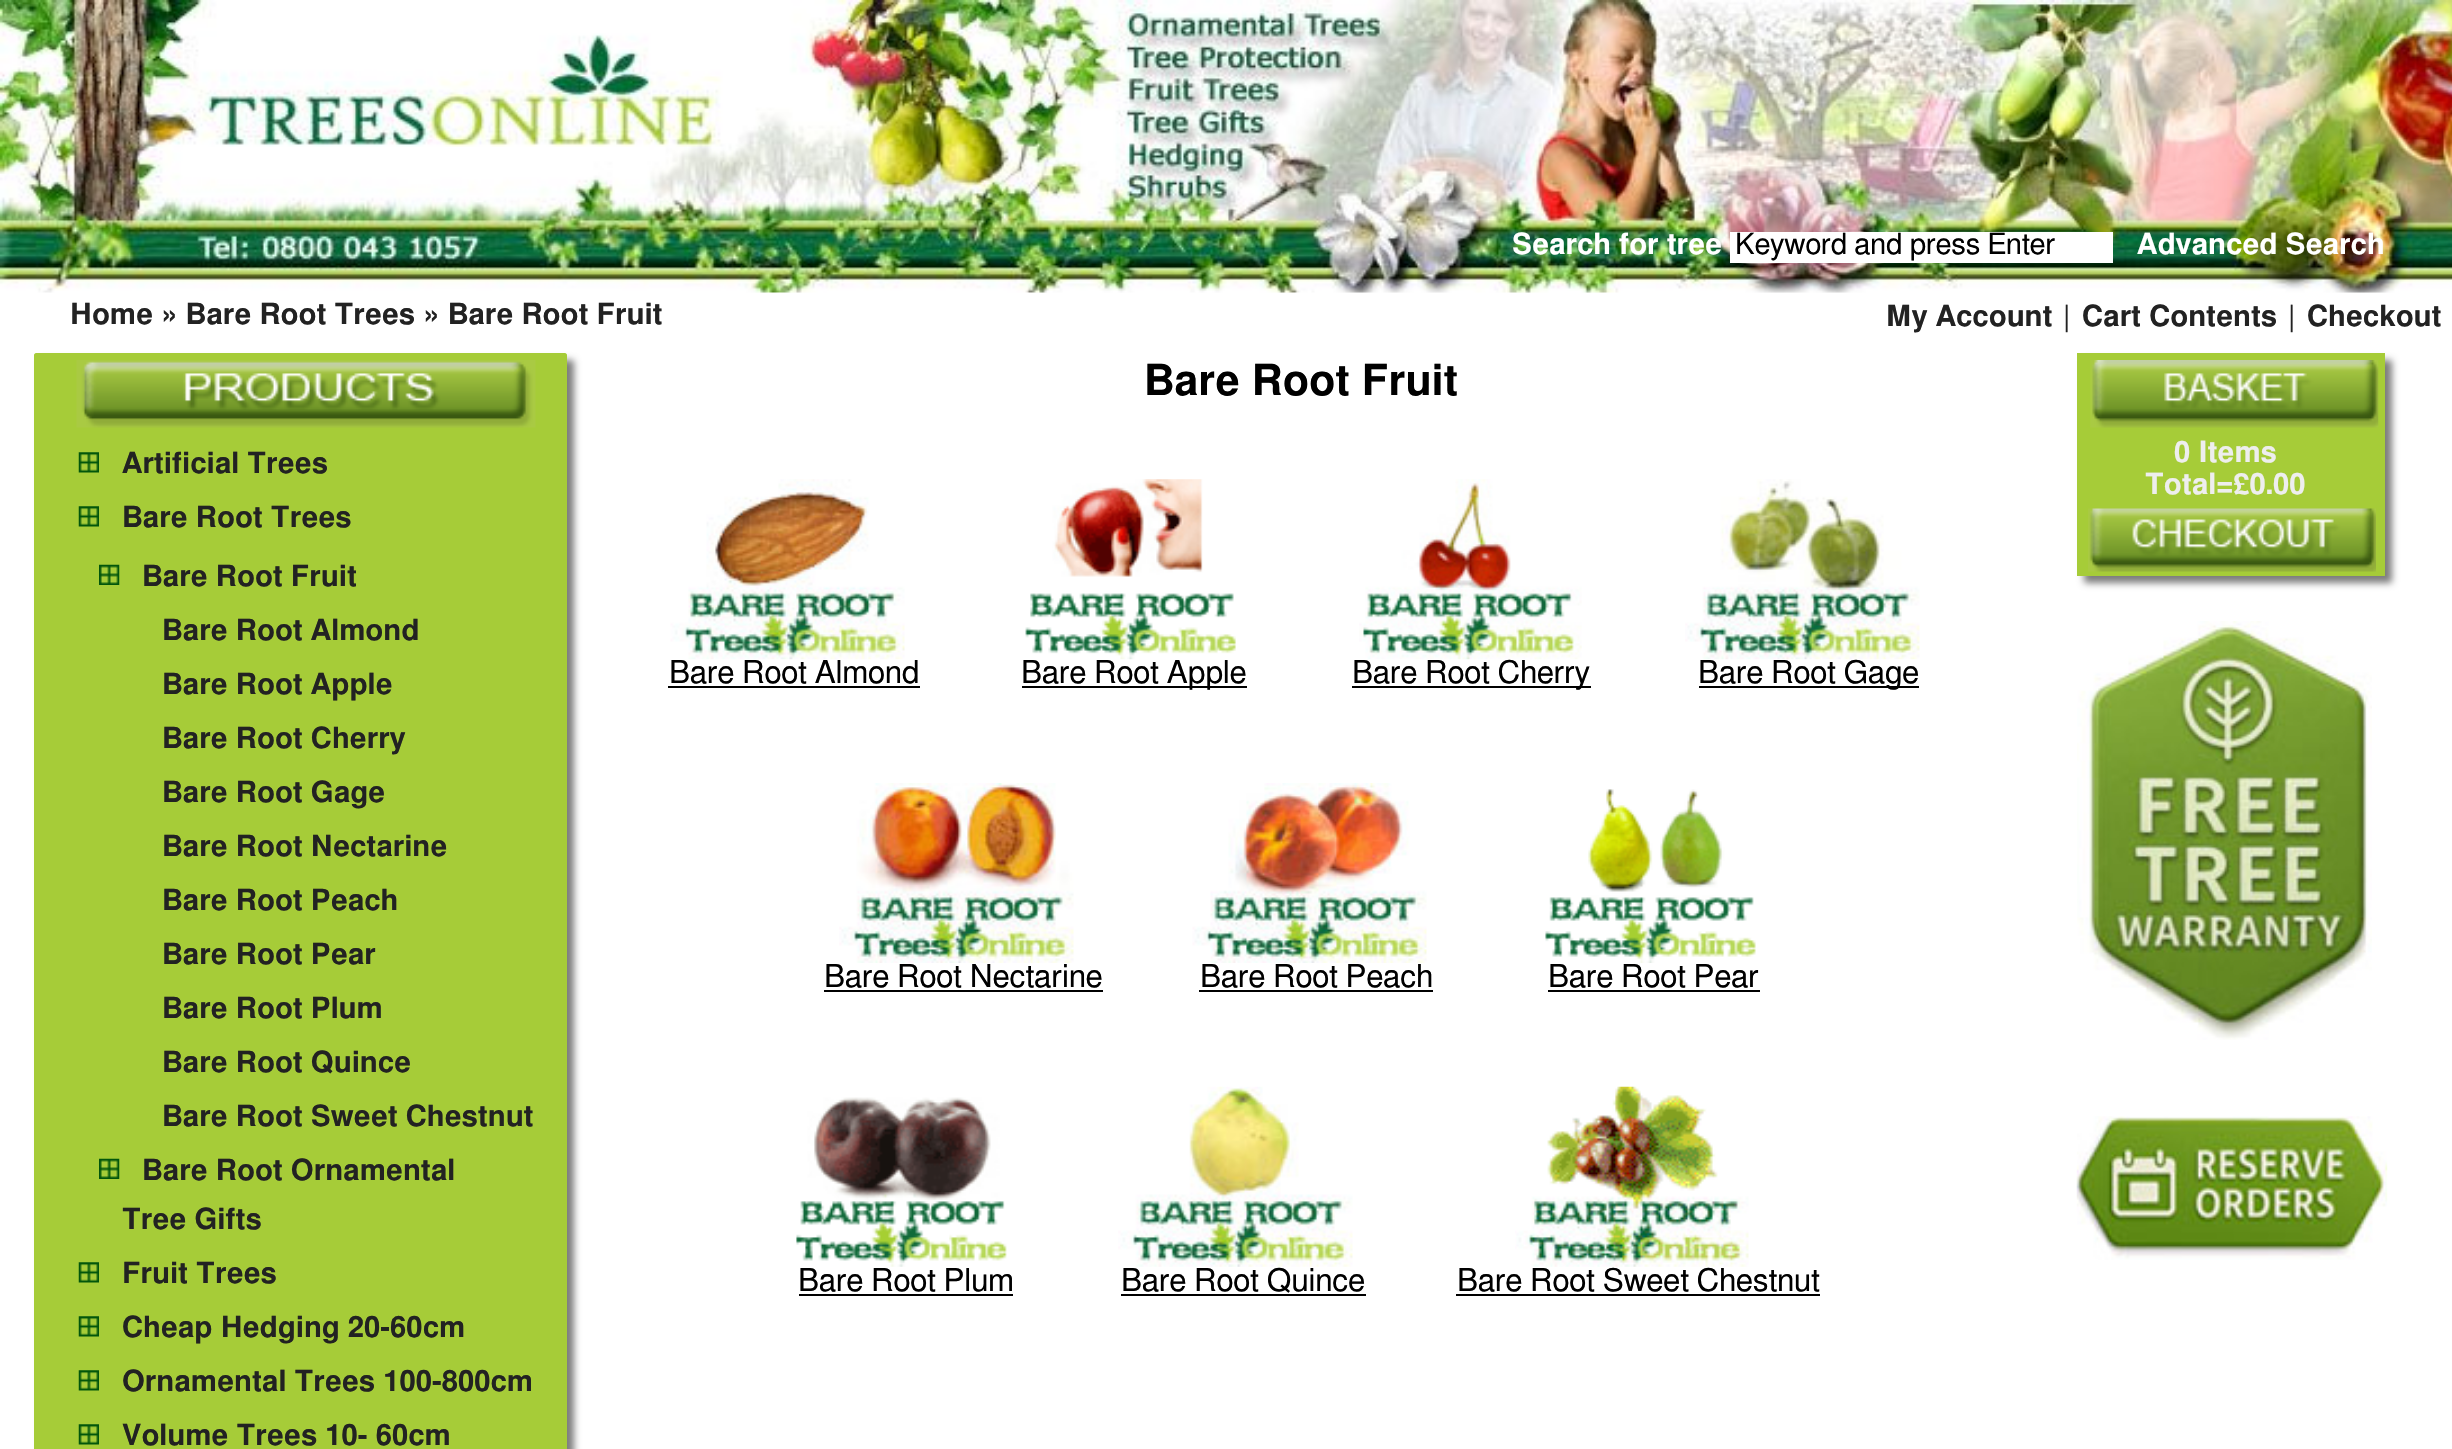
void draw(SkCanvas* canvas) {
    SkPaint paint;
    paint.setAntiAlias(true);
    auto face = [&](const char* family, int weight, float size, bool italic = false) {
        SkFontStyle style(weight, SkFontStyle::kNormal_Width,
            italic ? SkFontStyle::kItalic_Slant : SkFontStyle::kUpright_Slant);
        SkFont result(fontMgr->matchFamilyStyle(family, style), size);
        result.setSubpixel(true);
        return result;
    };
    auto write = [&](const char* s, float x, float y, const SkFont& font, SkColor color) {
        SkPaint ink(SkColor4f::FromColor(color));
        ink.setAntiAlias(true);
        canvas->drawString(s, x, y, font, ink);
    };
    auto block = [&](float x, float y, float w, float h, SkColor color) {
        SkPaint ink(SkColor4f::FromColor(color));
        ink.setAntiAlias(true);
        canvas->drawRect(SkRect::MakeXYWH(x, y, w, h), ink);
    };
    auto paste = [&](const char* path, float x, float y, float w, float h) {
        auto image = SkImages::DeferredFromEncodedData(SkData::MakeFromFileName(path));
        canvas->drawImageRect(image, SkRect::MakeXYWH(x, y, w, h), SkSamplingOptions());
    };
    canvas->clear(SK_ColorWHITE);
    paste("pic1.png", 0, 0, 2452, 293);
    auto kFont1 = face("FreeSans", 600, 29.25f);
    write("Search for tree", 1512, 254, kFont1, SK_ColorWHITE);
    block(1730, 232, 383, 31, SK_ColorWHITE);
    auto kFont2 = face("FreeSans", 400, 29.25f);
    write("Keyword and press Enter", 1735, 254, kFont2, SK_ColorBLACK);
    write("Advanced Search", 2137, 254, kFont1, SK_ColorWHITE);
    write("Home » Bare Root Trees » Bare Root Fruit", 70, 324, kFont1, SkColorSetRGB(34, 34, 34));
    write("My Account", 1886, 326, kFont1, SkColorSetRGB(34, 34, 34));
    write("|", 2063, 326, kFont2, SkColorSetRGB(34, 34, 34));
    write("Cart Contents", 2082, 326, kFont1, SkColorSetRGB(34, 34, 34));
    write("|", 2288, 326, kFont2, SkColorSetRGB(34, 34, 34));
    write("Checkout", 2307, 326, kFont1, SkColorSetRGB(34, 34, 34));
    paint.setColor(SkColorSetRGB(124, 124, 124));
    paint.setMaskFilter(SkMaskFilter::MakeBlur(kNormal_SkBlurStyle, 3.5f));
    canvas->drawRoundRect(SkRect::MakeXYWH(41, 360, 533, 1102), 2, 2, paint);
    paint.setMaskFilter(nullptr);
    paint.setColor(SkColorSetRGB(166, 204, 56));
    canvas->drawPath(SkPathBuilder().moveTo(36, 353).lineTo(565, 353).cubicTo(566, 353, 567, 354, 567, 355).lineTo(567, 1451).lineTo(34, 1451).lineTo(34, 355).cubicTo(34, 354, 35, 353, 36, 353).close().detach(), paint);
    paste("pic2.png", 76, 360, 460, 68);
    paste("pic3.png", 78, 452, 21, 21);
    write("Artificial Trees", 122, 473, kFont1, SkColorSetRGB(34, 34, 34));
    paste("pic3.png", 78, 506, 21, 21);
    write("Bare Root Trees", 122, 527, kFont1, SkColorSetRGB(34, 34, 34));
    paste("pic4.png", 99, 564, 21, 21);
    write("Bare Root Fruit", 142, 586, kFont1, SkColorSetRGB(34, 34, 34));
    write("Bare Root Almond", 162, 640, kFont1, SkColorSetRGB(34, 34, 34));
    write("Bare Root Apple", 162, 694, kFont1, SkColorSetRGB(34, 34, 34));
    write("Bare Root Cherry", 162, 748, kFont1, SkColorSetRGB(34, 34, 34));
    write("Bare Root Gage", 162, 802, kFont1, SkColorSetRGB(34, 34, 34));
    write("Bare Root Nectarine", 162, 856, kFont1, SkColorSetRGB(34, 34, 34));
    write("Bare Root Peach", 162, 910, kFont1, SkColorSetRGB(34, 34, 34));
    write("Bare Root Pear", 162, 964, kFont1, SkColorSetRGB(34, 34, 34));
    write("Bare Root Plum", 162, 1018, kFont1, SkColorSetRGB(34, 34, 34));
    write("Bare Root Quince", 162, 1072, kFont1, SkColorSetRGB(34, 34, 34));
    write("Bare Root Sweet Chestnut", 162, 1126, kFont1, SkColorSetRGB(34, 34, 34));
    paste("pic4.png", 99, 1158, 21, 21);
    write("Bare Root Ornamental", 142, 1180, kFont1, SkColorSetRGB(34, 34, 34));
    write("Tree Gifts", 122, 1229, kFont1, SkColorSetRGB(34, 34, 34));
    paste("pic3.png", 78, 1262, 21, 21);
    write("Fruit Trees", 122, 1283, kFont1, SkColorSetRGB(34, 34, 34));
    paste("pic3.png", 78, 1316, 21, 21);
    write("Cheap Hedging 20-60cm", 122, 1337, kFont1, SkColorSetRGB(34, 34, 34));
    paste("pic3.png", 78, 1370, 21, 21);
    write("Ornamental Trees 100-800cm", 122, 1391, kFont1, SkColorSetRGB(34, 34, 34));
    paste("pic3.png", 78, 1424, 21, 21);
    write("Volume Trees 10- 60cm", 122, 1445, kFont1, SkColorSetRGB(34, 34, 34));
    auto kFont3 = face("FreeSans", 600, 42.75f);
    write("Bare Root Fruit", 1144, 395, kFont3, SK_ColorBLACK);
    paste("pic5.png", 670, 479, 235, 181);
    auto kFont4 = face("FreeSans", 400, 31.5f);
    write("Bare Root Almond", 669, 683, kFont4, SK_ColorBLACK);
    block(668, 686, 252, 2, SK_ColorBLACK);
    paste("pic6.png", 1025, 479, 211, 181);
    block(1022, 686, 225, 2, SK_ColorBLACK);
    write("Bare Root Apple", 1021, 683, kFont4, SK_ColorBLACK);
    paste("pic7.png", 1359, 479, 223, 181);
    block(1352, 686, 239, 2, SK_ColorBLACK);
    write("Bare Root Cherry", 1352, 683, kFont4, SK_ColorBLACK);
    paste("pic8.png", 1685, 479, 235, 181);
    block(1699, 686, 220, 2, SK_ColorBLACK);
    write("Bare Root Gage", 1698, 683, kFont4, SK_ColorBLACK);
    paste("pic9.png", 839, 783, 235, 180);
    write("Bare Root Nectarine", 824, 987, kFont4, SK_ColorBLACK);
    block(824, 990, 279, 2, SK_ColorBLACK);
    paste("pic10.png", 1192, 783, 235, 180);
    write("Bare Root Peach", 1200, 987, kFont4, SK_ColorBLACK);
    block(1199, 990, 234, 2, SK_ColorBLACK);
    paste("pic11.png", 1545, 789, 211, 174);
    write("Bare Root Pear", 1548, 987, kFont4, SK_ColorBLACK);
    block(1548, 990, 212, 2, SK_ColorBLACK);
    paste("pic12.png", 796, 1097, 211, 170);
    write("Bare Root Plum", 798, 1291, kFont4, SK_ColorBLACK);
    block(799, 1294, 214, 2, SK_ColorBLACK);
    paste("pic13.png", 1118, 1086, 235, 181);
    write("Bare Root Quince", 1121, 1291, kFont4, SK_ColorBLACK);
    block(1121, 1294, 245, 2, SK_ColorBLACK);
    paste("pic14.png", 1515, 1086, 234, 181);
    write("Bare Root Sweet Chestnut", 1457, 1291, kFont4, SK_ColorBLACK);
    block(1456, 1294, 364, 2, SK_ColorBLACK);
    paint.setColor(SkColorSetRGB(124, 124, 124));
    paint.setMaskFilter(SkMaskFilter::MakeBlur(kNormal_SkBlurStyle, 3.5f));
    canvas->drawRoundRect(SkRect::MakeXYWH(2084, 360, 308, 223), 2, 2, paint);
    paint.setMaskFilter(nullptr);
    block(2077, 428, 308, 148, SkColorSetRGB(166, 204, 56));
    block(2077, 353, 308, 75, SkColorSetRGB(166, 204, 55));
    paste("pic15.png", 2090, 360, 289, 68);
    write("0 Items", 2174, 462, kFont1, SkColorSetRGB(238, 238, 238));
    write("Total=£0.00", 2145, 494, kFont1, SkColorSetRGB(238, 238, 238));
    paste("pic16.png", 2088, 508, 288, 64);
    paste("pic17.png", 2077, 621, 295, 419);
    paste("pic18.png", 2076, 1116, 312, 144);
}
